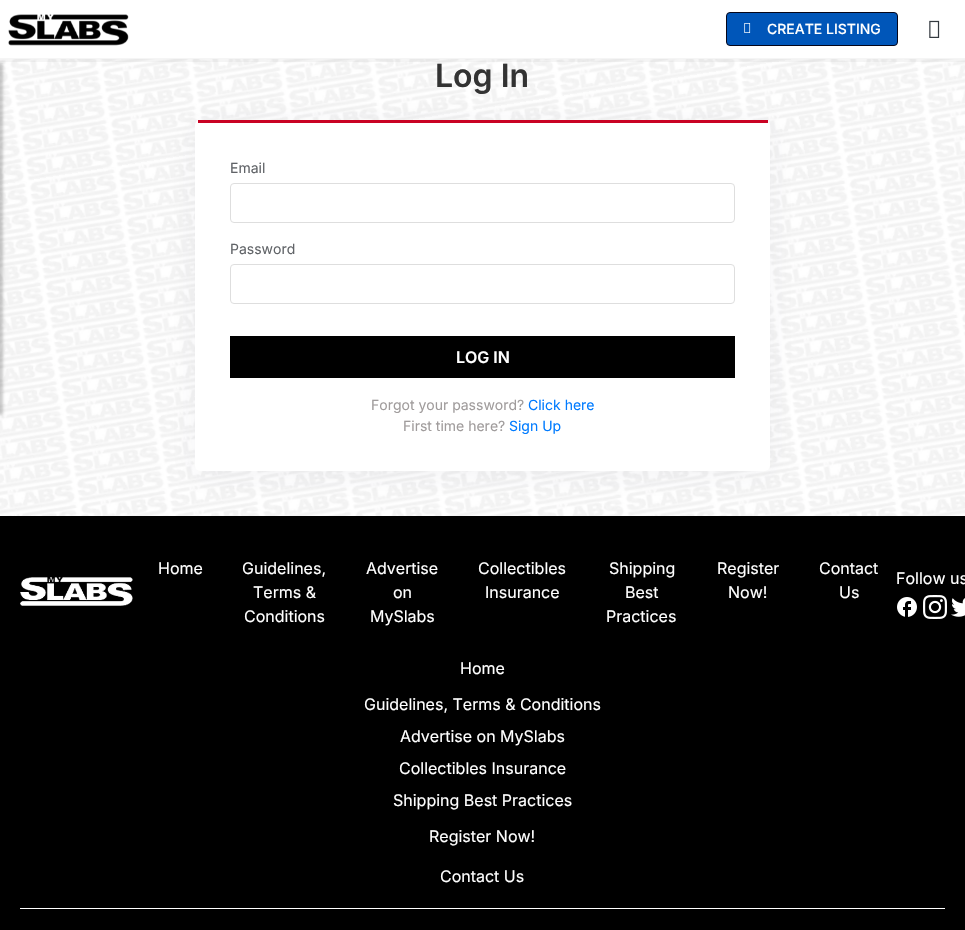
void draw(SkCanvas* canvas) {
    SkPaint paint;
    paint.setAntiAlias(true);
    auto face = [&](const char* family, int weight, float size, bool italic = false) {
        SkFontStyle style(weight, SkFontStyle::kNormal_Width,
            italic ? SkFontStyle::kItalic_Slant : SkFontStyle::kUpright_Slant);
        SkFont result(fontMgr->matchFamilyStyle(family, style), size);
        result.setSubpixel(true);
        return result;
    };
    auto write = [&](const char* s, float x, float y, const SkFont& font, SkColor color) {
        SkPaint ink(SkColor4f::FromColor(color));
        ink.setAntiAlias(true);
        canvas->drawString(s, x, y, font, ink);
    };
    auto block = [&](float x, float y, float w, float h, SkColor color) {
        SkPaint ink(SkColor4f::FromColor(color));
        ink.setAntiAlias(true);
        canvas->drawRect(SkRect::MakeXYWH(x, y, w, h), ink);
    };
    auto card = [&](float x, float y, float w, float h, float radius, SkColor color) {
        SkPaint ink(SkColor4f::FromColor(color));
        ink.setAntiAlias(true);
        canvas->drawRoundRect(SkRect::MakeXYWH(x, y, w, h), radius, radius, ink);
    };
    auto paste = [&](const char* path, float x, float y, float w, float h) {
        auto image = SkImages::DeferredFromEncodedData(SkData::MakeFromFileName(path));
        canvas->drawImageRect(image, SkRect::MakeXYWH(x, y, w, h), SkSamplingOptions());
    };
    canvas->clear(SK_ColorWHITE);
    paste("pic1.png", 8, 14, 121, 32);
    paint.setColor(SkColorSetRGB(0, 86, 185));
    canvas->drawRoundRect(SkRect::MakeXYWH(726.5f, 12.5f, 171, 33), 3.5f, 3.5f, paint);
    paint.setStyle(SkPaint::kStroke_Style);
    paint.setStrokeWidth(1);
    paint.setColor(SkColorSetRGB(6, 6, 25));
    canvas->drawRoundRect(SkRect::MakeXYWH(726.5f, 12.5f, 171, 33), 3.5f, 3.5f, paint);
    paste("pic2.png", 744, 23, 7, 10);
    auto kFont1 = face("Inter", 500, 14);
    write("CREATE LISTING", 767, 34, kFont1, SK_ColorWHITE);
    paste("pic3.png", 929, 20, 11, 18);
    paste("pic8.png", 0, 59, 965, 457);
    block(0, 58, 965, 4, SkColorSetARGB(10, 0, 0, 0));
    paint.setStyle(SkPaint::kFill_Style);
    paint.setColor(SkColorSetARGB(51, 0, 0, 0));
    paint.setMaskFilter(SkMaskFilter::MakeBlur(kNormal_SkBlurStyle, 1.5f));
    canvas->drawRect(SkRect::MakeXYWH(-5, 63, 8, 352), paint);
    paint.setMaskFilter(nullptr);
    block(0, 516, 965, 414, SK_ColorBLACK);
    paint.setColor(SkColorSetARGB(15, 46, 50, 90));
    paint.setMaskFilter(SkMaskFilter::MakeBlur(kNormal_SkBlurStyle, 15));
    canvas->drawRoundRect(SkRect::MakeXYWH(195, 124, 575, 351), 5, 5, paint);
    paint.setMaskFilter(nullptr);
    auto kFont2 = face("Inter", 600, 32);
    write("Log In", 435, 87, kFont2, SkColorSetRGB(51, 51, 51));
    card(195, 120, 575, 351, 5, SK_ColorWHITE);
    block(198, 120, 570, 3, SkColorSetRGB(201, 2, 35));
    auto kFont3 = face("Inter", 400, 14);
    write("Email", 230, 173, kFont3, SkColorSetRGB(96, 99, 103));
    paint.setStyle(SkPaint::kStroke_Style);
    paint.setColor(SkColorSetRGB(222, 222, 222));
    canvas->drawRoundRect(SkRect::MakeXYWH(230.5f, 183.5f, 504, 39), 3.5f, 3.5f, paint);
    write("Password", 230, 254, kFont3, SkColorSetRGB(96, 99, 103));
    canvas->drawRoundRect(SkRect::MakeXYWH(230.5f, 264.5f, 504, 39), 3.5f, 3.5f, paint);
    block(230, 336, 505, 42, SK_ColorBLACK);
    auto kFont4 = face("Inter", 600, 16);
    write("LOG IN", 456, 363, kFont4, SK_ColorWHITE);
    write("Forgot your password?", 371, 410, kFont3, SkColorSetRGB(160, 156, 156));
    write("Click here", 528, 410, kFont3, SkColorSetRGB(0, 123, 255));
    write("First time here?", 403, 431, kFont3, SkColorSetRGB(160, 156, 156));
    write("Sign Up", 509, 431, kFont3, SkColorSetRGB(0, 123, 255));
    paste("pic4.png", 20, 577, 113, 29);
    auto kFont5 = face("Inter", 400, 16);
    write("Home", 158, 574, kFont5, SK_ColorWHITE);
    write("Guidelines,", 242, 574, kFont5, SK_ColorWHITE);
    write("Terms &", 253, 598, kFont5, SK_ColorWHITE);
    write("Conditions", 244, 622, kFont5, SK_ColorWHITE);
    write("Advertise", 366, 574, kFont5, SK_ColorWHITE);
    write("on", 393, 598, kFont5, SK_ColorWHITE);
    write("MySlabs", 370, 622, kFont5, SK_ColorWHITE);
    write("Collectibles", 478, 574, kFont5, SK_ColorWHITE);
    write("Insurance", 485, 598, kFont5, SK_ColorWHITE);
    write("Shipping", 609, 574, kFont5, SK_ColorWHITE);
    write("Best", 625, 598, kFont5, SK_ColorWHITE);
    write("Practices", 606, 622, kFont5, SK_ColorWHITE);
    write("Register", 717, 574, kFont5, SK_ColorWHITE);
    write("Now!", 728, 598, kFont5, SK_ColorWHITE);
    write("Contact", 819, 574, kFont5, SK_ColorWHITE);
    write("Us", 839, 598, kFont5, SK_ColorWHITE);
    write("Follow us", 896, 584, kFont5, SK_ColorWHITE);
    paste("pic5.png", 897, 597, 20, 20);
    paste("pic6.png", 923, 595, 24, 24);
    paste("pic7.png", 951, 598, 14, 19);
    write("Home", 460, 674, kFont5, SK_ColorWHITE);
    write("Guidelines, Terms & Conditions", 364, 710, kFont5, SK_ColorWHITE);
    write("Advertise on MySlabs", 400, 742, kFont5, SK_ColorWHITE);
    write("Collectibles Insurance", 399, 774, kFont5, SK_ColorWHITE);
    write("Shipping Best Practices", 393, 806, kFont5, SK_ColorWHITE);
    write("Register Now!", 429, 842, kFont5, SK_ColorWHITE);
    write("Contact Us", 440, 882, kFont5, SK_ColorWHITE);
    block(20, 908, 925, 1, SK_ColorWHITE);
}
